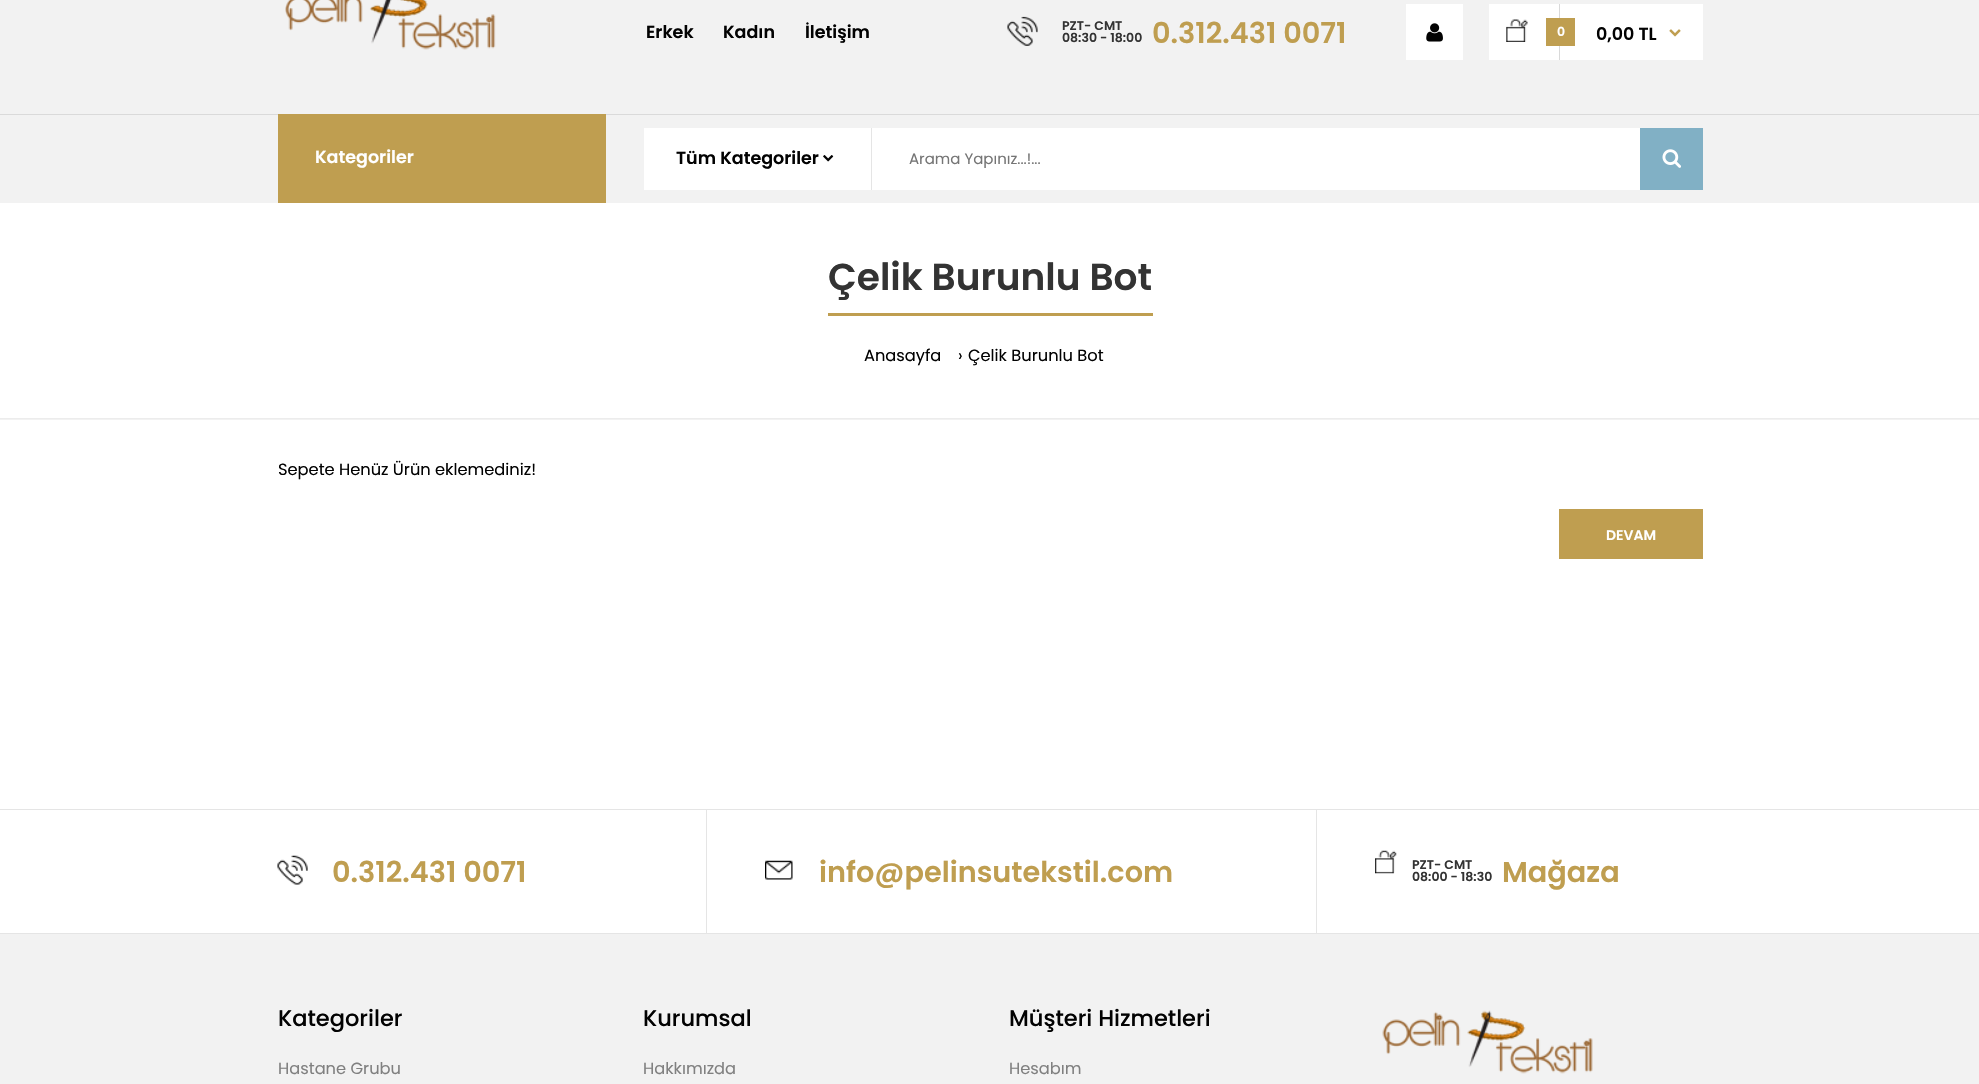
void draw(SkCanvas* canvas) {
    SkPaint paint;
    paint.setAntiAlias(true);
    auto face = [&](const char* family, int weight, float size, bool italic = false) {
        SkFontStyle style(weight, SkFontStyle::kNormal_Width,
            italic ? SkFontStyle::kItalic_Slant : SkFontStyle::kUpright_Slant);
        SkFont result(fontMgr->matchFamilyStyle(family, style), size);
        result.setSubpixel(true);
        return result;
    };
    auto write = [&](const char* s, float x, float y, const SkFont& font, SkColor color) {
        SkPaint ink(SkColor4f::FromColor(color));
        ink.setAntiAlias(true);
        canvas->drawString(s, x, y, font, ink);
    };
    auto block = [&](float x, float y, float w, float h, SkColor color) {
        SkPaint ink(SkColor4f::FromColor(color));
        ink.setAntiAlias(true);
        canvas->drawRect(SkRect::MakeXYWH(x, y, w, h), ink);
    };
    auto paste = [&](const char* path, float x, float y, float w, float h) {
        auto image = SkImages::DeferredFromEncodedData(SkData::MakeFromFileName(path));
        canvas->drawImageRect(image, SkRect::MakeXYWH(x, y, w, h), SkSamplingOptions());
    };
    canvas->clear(SK_ColorWHITE);
    block(0, 0, 1979, 203, SkColorSetRGB(242, 242, 242));
    paste("pic1.png", 285, 0, 211, 50);
    auto kFont1 = face("Poppins", 600, 17.5f);
    write("Erkek", 646, 38, kFont1, SkColorSetRGB(2, 2, 2));
    write("Kadın", 723, 38, kFont1, SkColorSetRGB(2, 2, 2));
    write("İletişim", 805, 38, kFont1, SkColorSetRGB(2, 2, 2));
    paste("pic2.png", 1007, 16, 31, 30);
    auto kFont2 = face("Poppins", 600, 12.5f);
    write("PZT- CMT", 1062, 30, kFont2, SkColorSetRGB(51, 51, 51));
    write("08:30 - 18:00", 1062, 42, kFont2, SkColorSetRGB(51, 51, 51));
    auto kFont3 = face("Poppins", 600, 28.75f);
    write("0.312.431 0071", 1152, 43, kFont3, SkColorSetRGB(191, 158, 80));
    block(1406, 4, 57, 56, SK_ColorWHITE);
    paste("pic3.png", 1426, 23, 17, 19);
    block(1489, 4, 214, 56, SK_ColorWHITE);
    paste("pic4.png", 1506, 19, 22, 23);
    block(1559, 4, 1, 56, SkColorSetRGB(217, 217, 217));
    block(1546, 18, 29, 28, SkColorSetRGB(191, 158, 80));
    write("0", 1557, 36, kFont2, SK_ColorWHITE);
    write("0,00 TL", 1596, 40, kFont1, SkColorSetRGB(2, 2, 2));
    paste("pic5.png", 1669, 29, 12, 8);
    block(0, 114, 1979, 1, SkColorSetRGB(218, 218, 218));
    block(278, 114, 328, 89, SkColorSetRGB(191, 158, 80));
    write("Kategoriler", 315, 163, kFont1, SK_ColorWHITE);
    block(644, 128, 996, 62, SK_ColorWHITE);
    block(871, 128, 1, 62, SkColorSetRGB(229, 229, 229));
    write("Tüm Kategoriler", 676, 164, kFont1, SkColorSetRGB(2, 2, 2));
    paste("pic6.png", 823, 155, 11, 7);
    auto kFont4 = face("Poppins", 400, 15);
    write("Arama Yapınız...!...", 909, 164, kFont4, SkColorSetRGB(117, 117, 117));
    block(1640, 128, 63, 62, SkColorSetRGB(129, 176, 197));
    paste("pic7.png", 1662, 149, 19, 19);
    paste("pic8.png", 0, 418, 1979, 2);
    block(828, 313, 325, 3, SkColorSetRGB(191, 158, 80));
    auto kFont5 = face("Poppins", 600, 37.5f);
    write("Çelik Burunlu Bot", 828, 290, kFont5, SkColorSetRGB(51, 51, 51));
    auto kFont6 = face("Poppins", 400, 16.25f);
    write("Anasayfa", 864, 361, kFont6, SkColorSetRGB(2, 2, 2));
    write("›", 958, 361, kFont6, SkColorSetRGB(2, 2, 2));
    write("Çelik Burunlu Bot", 968, 361, kFont6, SkColorSetRGB(2, 2, 2));
    write("Sepete Henüz Ürün eklemediniz!", 278, 475, kFont6, SkColorSetRGB(2, 2, 2));
    block(1559, 509, 144, 50, SkColorSetRGB(191, 158, 80));
    auto kFont7 = face("Poppins", 600, 14);
    write("DEVAM", 1606, 540, kFont7, SK_ColorWHITE);
    block(0, 809, 1979, 1, SkColorSetRGB(229, 229, 229));
    paste("pic9.png", 277, 855, 31, 30);
    write("0.312.431 0071", 332, 882, kFont3, SkColorSetRGB(191, 158, 80));
    block(706, 810, 1, 123, SkColorSetRGB(229, 229, 229));
    paste("pic10.png", 765, 860, 28, 20);
    write("info@pelinsutekstil.com", 819, 882, kFont3, SkColorSetRGB(191, 158, 80));
    block(1316, 810, 1, 123, SkColorSetRGB(229, 229, 229));
    paste("pic11.png", 1375, 850, 22, 24);
    write("PZT- CMT", 1412, 869, kFont2, SkColorSetRGB(51, 51, 51));
    write("08:00 - 18:30", 1412, 881, kFont2, SkColorSetRGB(51, 51, 51));
    write("Mağaza", 1502, 882, kFont3, SkColorSetRGB(191, 158, 80));
    block(0, 934, 1979, 150, SkColorSetRGB(242, 242, 242));
    block(0, 933, 1979, 1, SkColorSetRGB(229, 229, 229));
    auto kFont8 = face("Poppins", 500, 22.5f);
    write("Kategoriler", 278, 1026, kFont8, SkColorSetRGB(2, 2, 2));
    write("Hastane Grubu", 278, 1074, kFont6, SkColorSetRGB(128, 128, 128));
    write("Kurumsal", 643, 1026, kFont8, SkColorSetRGB(2, 2, 2));
    write("Hakkımızda", 643, 1074, kFont6, SkColorSetRGB(128, 128, 128));
    write("Müşteri Hizmetleri", 1009, 1026, kFont8, SkColorSetRGB(2, 2, 2));
    write("Hesabım", 1009, 1074, kFont6, SkColorSetRGB(128, 128, 128));
    paste("pic12.png", 1382, 1010, 211, 64);
}
